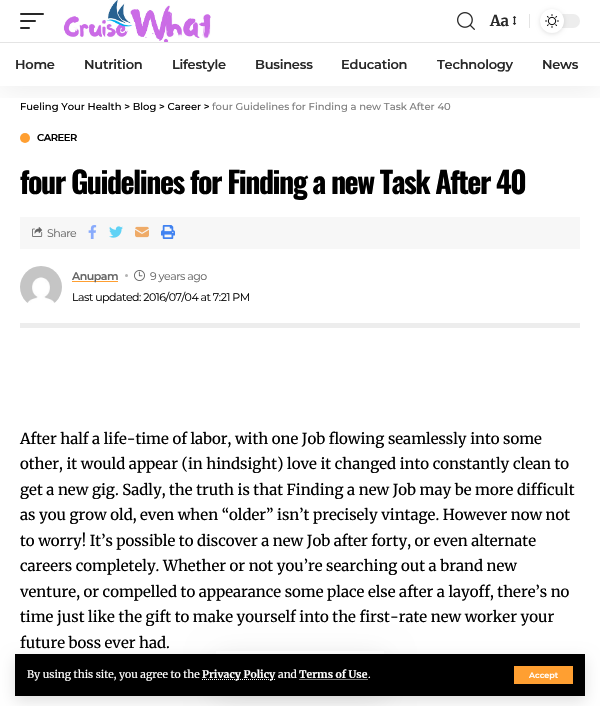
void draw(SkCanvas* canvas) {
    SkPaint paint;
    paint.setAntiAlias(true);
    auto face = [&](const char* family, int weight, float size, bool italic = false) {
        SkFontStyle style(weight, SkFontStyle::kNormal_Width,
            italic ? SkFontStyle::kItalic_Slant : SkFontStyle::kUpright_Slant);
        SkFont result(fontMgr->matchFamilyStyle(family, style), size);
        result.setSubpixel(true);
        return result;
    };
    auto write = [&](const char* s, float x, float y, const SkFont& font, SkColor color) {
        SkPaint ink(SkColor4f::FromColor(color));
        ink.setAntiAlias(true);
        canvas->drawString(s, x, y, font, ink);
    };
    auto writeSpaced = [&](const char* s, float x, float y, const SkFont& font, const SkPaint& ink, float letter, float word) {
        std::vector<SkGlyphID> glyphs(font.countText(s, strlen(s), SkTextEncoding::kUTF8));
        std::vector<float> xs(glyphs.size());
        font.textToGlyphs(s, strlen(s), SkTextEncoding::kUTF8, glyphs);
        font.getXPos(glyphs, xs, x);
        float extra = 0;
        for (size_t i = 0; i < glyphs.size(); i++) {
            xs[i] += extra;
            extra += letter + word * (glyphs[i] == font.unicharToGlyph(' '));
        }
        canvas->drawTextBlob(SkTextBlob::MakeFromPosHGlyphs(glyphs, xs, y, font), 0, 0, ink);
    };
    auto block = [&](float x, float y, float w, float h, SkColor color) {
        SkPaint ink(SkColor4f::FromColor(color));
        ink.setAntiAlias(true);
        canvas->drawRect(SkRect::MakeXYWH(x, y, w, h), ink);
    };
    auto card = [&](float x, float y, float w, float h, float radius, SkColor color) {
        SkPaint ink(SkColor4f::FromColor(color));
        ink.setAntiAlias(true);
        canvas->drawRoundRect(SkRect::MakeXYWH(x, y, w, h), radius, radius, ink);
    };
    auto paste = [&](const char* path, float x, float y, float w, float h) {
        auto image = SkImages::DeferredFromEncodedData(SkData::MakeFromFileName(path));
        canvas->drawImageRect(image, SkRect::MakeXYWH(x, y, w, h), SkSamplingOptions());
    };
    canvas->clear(SK_ColorWHITE);
    paint.setColor(SkColorSetRGB(255, 159, 49));
    canvas->drawCircle(25, 138, 5, paint);
    canvas->save();
    canvas->clipRect(SkRect::MakeXYWH(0, 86, 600, 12));
    paint.setColor(SkColorSetARGB(18, 0, 0, 0));
    paint.setMaskFilter(SkMaskFilter::MakeBlur(kNormal_SkBlurStyle, 15));
    canvas->drawRect(SkRect::MakeXYWH(0, 4, 600, 86), paint);
    paint.setMaskFilter(nullptr);
    canvas->restore();
    card(20, 13, 24, 2, 1, SkColorSetRGB(40, 40, 40));
    card(20, 20, 16, 2, 1, SkColorSetRGB(40, 40, 40));
    card(20, 27, 10, 2, 1, SkColorSetRGB(40, 40, 40));
    paste("pic1.png", 63, 0, 148, 42);
    paste("pic2.png", 457, 12, 18, 18);
    auto kFont1 = face("Merriweather", 700, 15);
    write("Aa", 490, 26, kFont1, SkColorSetRGB(40, 40, 40));
    paste("pic3.png", 512, 16, 5, 9);
    block(529, 14, 1, 14, SkColorSetRGB(228, 228, 228));
    card(540, 14, 40, 14, 7, SkColorSetRGB(237, 237, 237));
    paint.setColor(SkColorSetARGB(31, 0, 0, 0));
    paint.setMaskFilter(SkMaskFilter::MakeBlur(kNormal_SkBlurStyle, 2));
    canvas->drawRoundRect(SkRect::MakeXYWH(540, 10, 24, 24), 12, 12, paint);
    paint.setMaskFilter(nullptr);
    paint.setColor(SK_ColorWHITE);
    canvas->drawCircle(552, 21, 12, paint);
    paste("pic4.png", 545, 14, 14, 14);
    block(0, 42, 600, 1, SkColorSetRGB(228, 228, 228));
    auto kFont2 = face("Montserrat", 600, 13);
    paint.setColor(SkColorSetRGB(40, 40, 40));
    writeSpaced("Home", 15, 69, kFont2, paint, -0.25f, 0);
    writeSpaced("Nutrition", 84, 69, kFont2, paint, -0.25f, 0);
    writeSpaced("Lifestyle", 172, 69, kFont2, paint, -0.25f, 0);
    writeSpaced("Business", 255, 69, kFont2, paint, -0.25f, 0);
    writeSpaced("Education", 341, 69, kFont2, paint, -0.25f, 0);
    writeSpaced("Technology", 437, 69, kFont2, paint, -0.25f, 0);
    writeSpaced("News", 542, 69, kFont2, paint, -0.25f, 0);
    paint.setColor(SkColorSetARGB(31, 0, 0, 0));
    paint.setMaskFilter(SkMaskFilter::MakeBlur(kNormal_SkBlurStyle, 7.5f));
    canvas->drawRect(SkRect::MakeXYWH(15, 659, 570, 42), paint);
    paint.setMaskFilter(nullptr);
    canvas->save();
    canvas->clipPath(SkPathBuilder(SkPathFillType::kEvenOdd).moveTo(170, 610).lineTo(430, 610).lineTo(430, 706).lineTo(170, 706).close().moveTo(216, 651).lineTo(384, 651).lineTo(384, 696).lineTo(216, 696).close().detach(), true);
    paint.setColor(SkColorSetARGB(18, 0, 0, 0));
    paint.setMaskFilter(SkMaskFilter::MakeBlur(kNormal_SkBlurStyle, 15));
    canvas->drawRect(SkRect::MakeXYWH(216, 656, 168, 45), paint);
    paint.setMaskFilter(nullptr);
    canvas->restore();
    block(15, 654, 570, 42, SK_ColorBLACK);
    auto kFont3 = face("Merriweather", 400, 10.5f);
    write("By using this site, you agree to the", 27, 678, kFont3, SK_ColorWHITE);
    paint.setStyle(SkPaint::kStroke_Style);
    paint.setStrokeWidth(1);
    paint.setColor(SK_ColorWHITE);
    paint.setPathEffect(SkDashPathEffect::Make({{1, 1}}, 0));
    canvas->drawPath(SkPathBuilder().moveTo(202, 679.5f).lineTo(275.5f, 679.5f).detach(), paint);
    paint.setPathEffect(nullptr);
    auto kFont4 = face("Merriweather", 700, 10.5f);
    write("Privacy Policy", 202, 678, kFont4, SK_ColorWHITE);
    write("and", 278, 678, kFont3, SK_ColorWHITE);
    write("Terms of Use", 299, 678, kFont4, SK_ColorWHITE);
    paint.setPathEffect(SkDashPathEffect::Make({{1, 1}}, 0));
    canvas->drawPath(SkPathBuilder().moveTo(299.5f, 679.5f).lineTo(368, 679.5f).detach(), paint);
    paint.setPathEffect(nullptr);
    write(".", 368, 678, kFont3, SK_ColorWHITE);
    block(514, 666, 59, 18, SkColorSetRGB(255, 159, 49));
    auto kFont5 = face("Montserrat", 600, 8);
    write("Accept", 529, 678, kFont5, SK_ColorWHITE);
    block(20, 323, 560, 5, SkColorSetRGB(237, 237, 237));
    auto kFont6 = face("Montserrat", 500, 10);
    write("Fueling Your Health > Blog > Career >", 20, 110, kFont6, SK_ColorBLACK);
    write("four Guidelines for Finding a new Task After 40", 212, 110, kFont6, SkColorSetRGB(128, 128, 128));
    auto kFont7 = face("Montserrat", 600, 10);
    paint.setStyle(SkPaint::kFill_Style);
    paint.setColor(SK_ColorBLACK);
    writeSpaced("CAREER", 37, 141, kFont7, paint, -0.5f, 0);
    auto kFont8 = face("Oswald", 700, 30);
    writeSpaced("four Guidelines for Finding a new Task After 40", 20, 194, kFont8, paint, -1.5f, 0);
    block(20, 217, 560, 32, SkColorSetRGB(247, 247, 247));
    paste("pic5.png", 32, 227, 11, 10);
    auto kFont9 = face("Montserrat", 400, 11);
    paint.setColor(SkColorSetRGB(102, 102, 102));
    writeSpaced("Share", 47, 237, kFont9, paint, -0.5f, 0);
    paste("pic6.png", 88, 225, 9, 14);
    paste("pic7.png", 109, 226, 14, 12);
    paste("pic8.png", 135, 226, 14, 12);
    paste("pic9.png", 161, 225, 14, 14);
    paste("pic10.png", 20, 266, 42, 37);
    block(72, 281, 46, 1, SkColorSetRGB(255, 159, 49));
    auto kFont10 = face("Montserrat", 600, 11);
    writeSpaced("Anupam", 72, 280, kFont10, paint, -0.5f, 0);
    paint.setColor(SkColorSetRGB(179, 179, 179));
    canvas->drawCircle(126.5f, 275.5f, 1.5f, paint);
    paste("pic11.png", 134, 270, 11, 11);
    paint.setColor(SkColorSetRGB(102, 102, 102));
    writeSpaced("9 years ago", 150, 280, kFont9, paint, -0.5f, 0);
    paint.setColor(SK_ColorBLACK);
    writeSpaced("Last updated: 2016/07/04 at 7:21 PM", 72, 301, kFont9, paint, -0.5f, 0);
    auto kFont11 = face("Merriweather", 400, 15);
    write("After half a life-time of labor, with one Job flowing seamlessly into some", 20, 444, kFont11, SK_ColorBLACK);
    write("other, it would appear (in hindsight) love it changed into constantly clean to", 20, 469, kFont11, SK_ColorBLACK);
    write("get a new gig. Sadly, the truth is that Finding a new Job may be more difficult", 20, 495, kFont11, SK_ColorBLACK);
    write("as you grow old, even when “older” isn’t precisely vintage. However now not", 20, 520, kFont11, SK_ColorBLACK);
    write("to worry! It’s possible to discover a new Job after forty, or even alternate", 20, 546, kFont11, SK_ColorBLACK);
    write("careers completely. Whether or not you’re searching out a brand new", 20, 571, kFont11, SK_ColorBLACK);
    write("venture, or compelled to appearance some place else after a layoff, there’s no", 20, 597, kFont11, SK_ColorBLACK);
    write("time just like the gift to make yourself into the first-rate new worker your", 20, 622, kFont11, SK_ColorBLACK);
    write("future boss ever had.", 20, 648, kFont11, SK_ColorBLACK);
}
